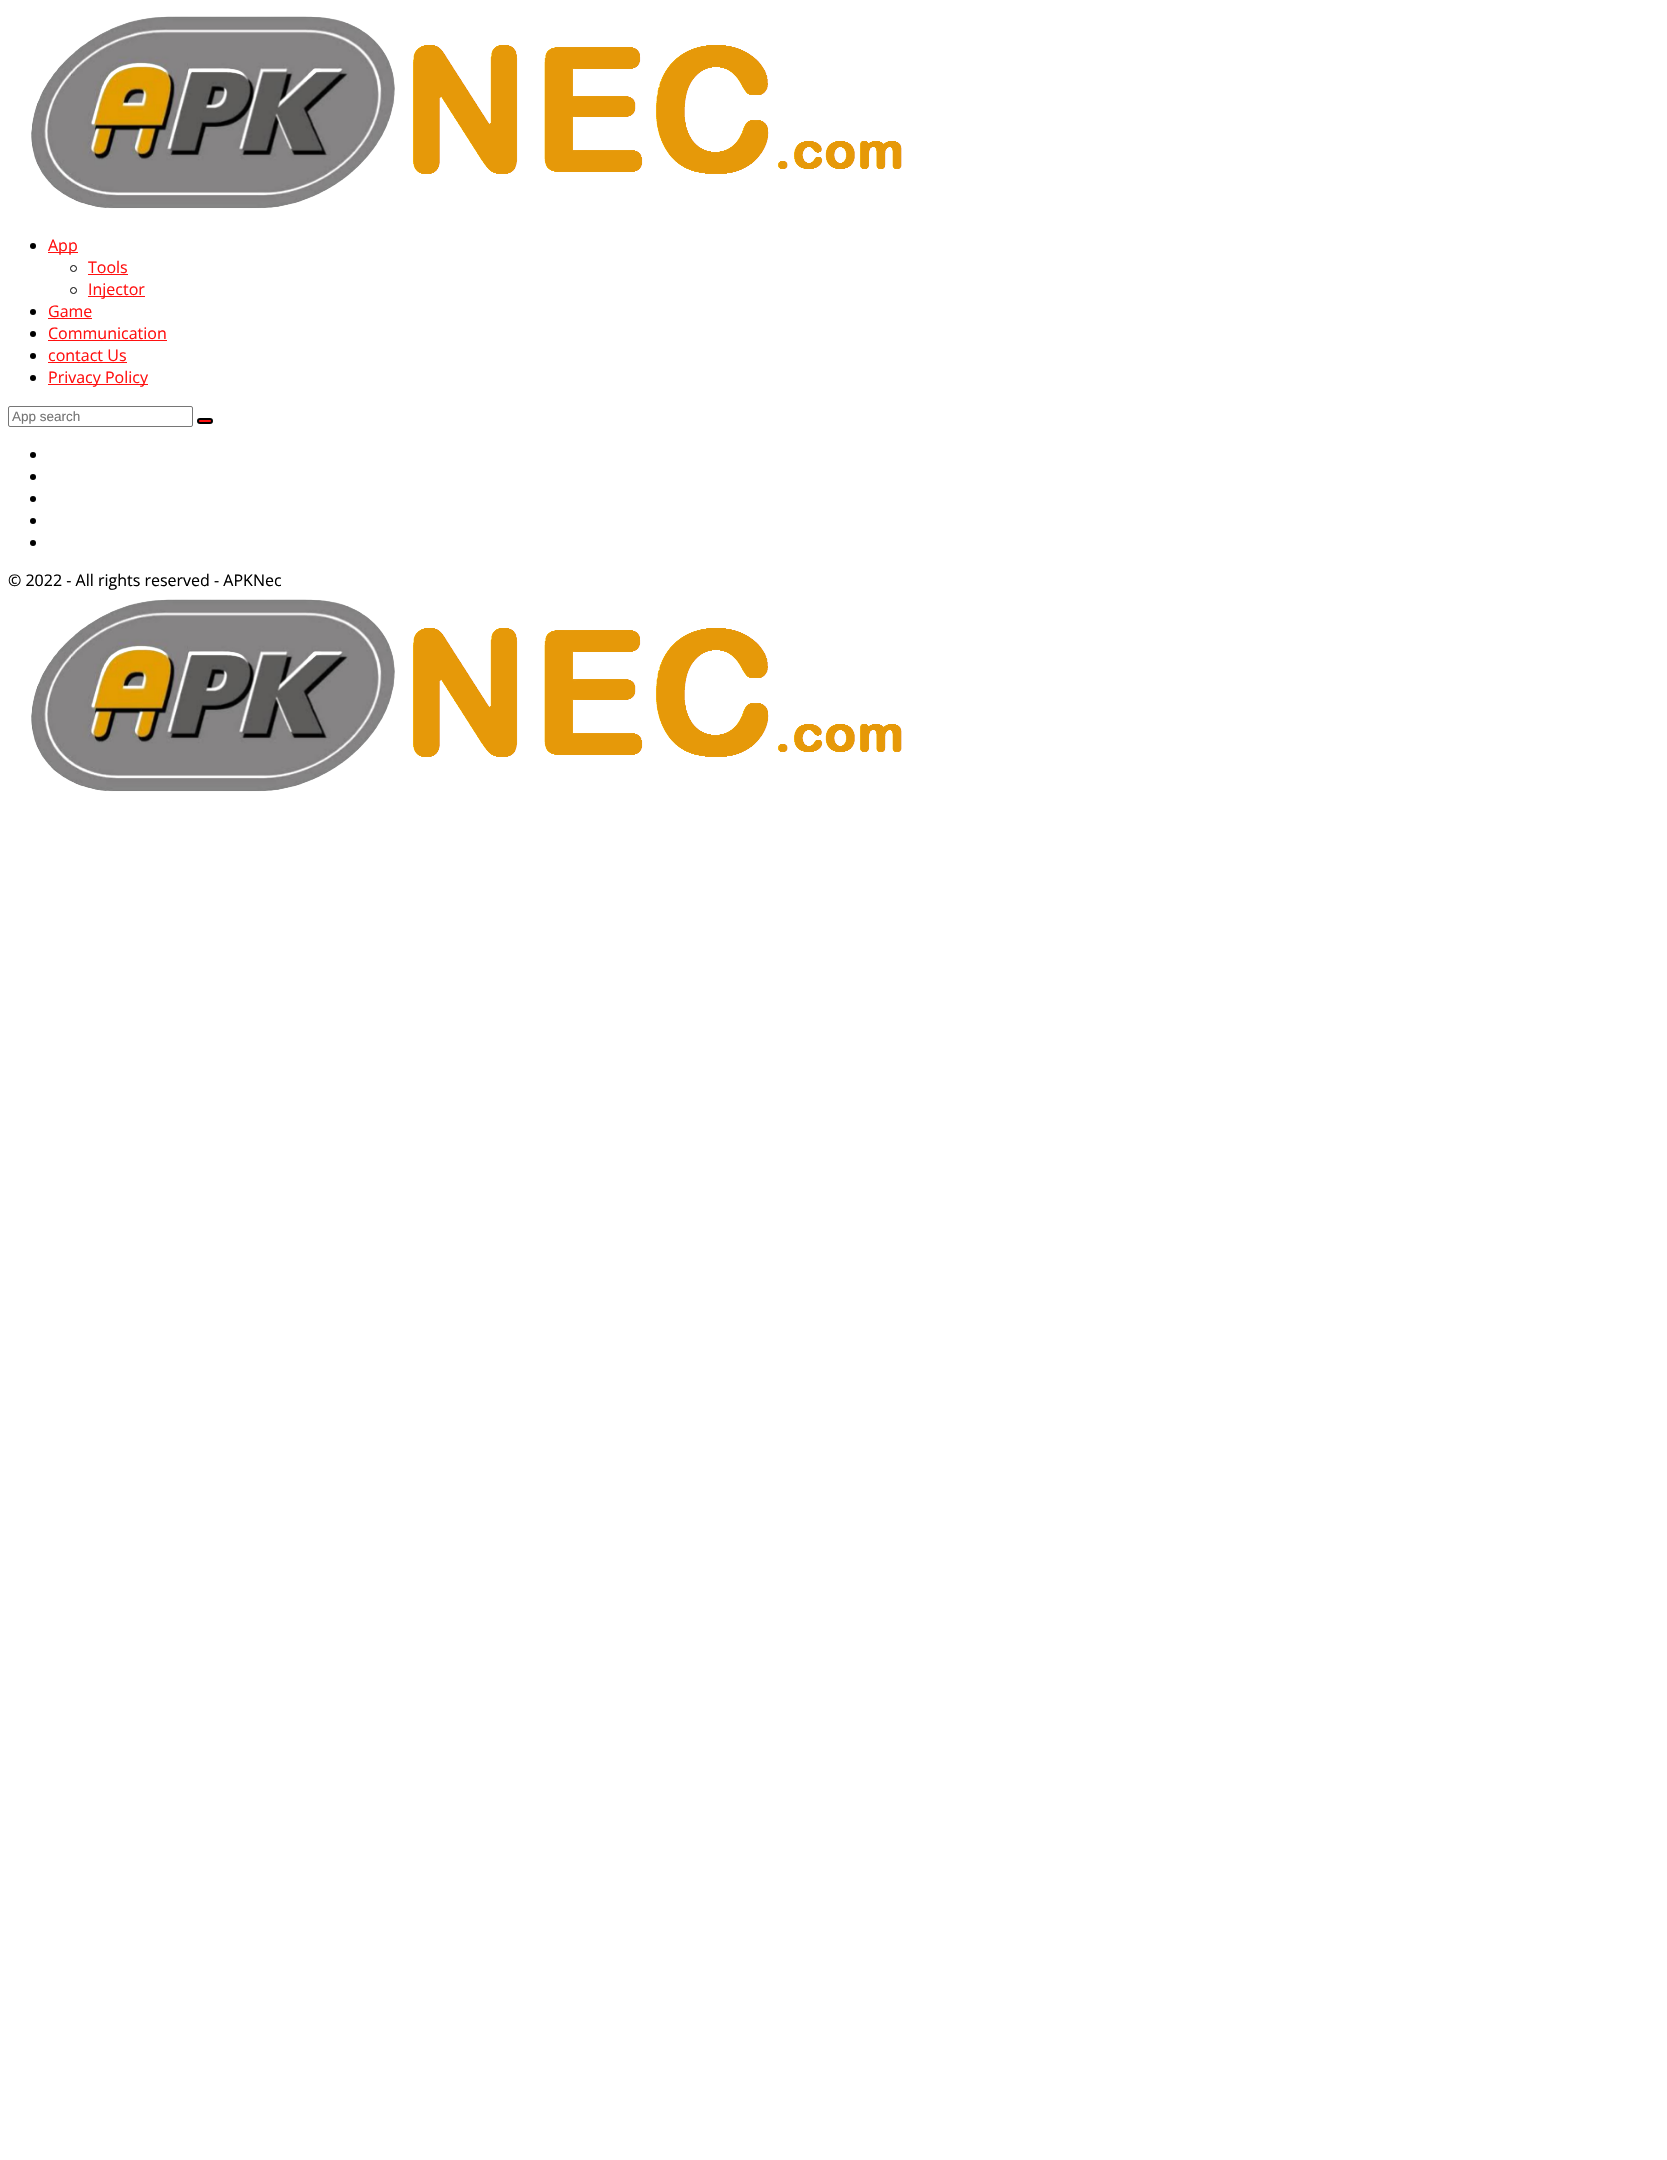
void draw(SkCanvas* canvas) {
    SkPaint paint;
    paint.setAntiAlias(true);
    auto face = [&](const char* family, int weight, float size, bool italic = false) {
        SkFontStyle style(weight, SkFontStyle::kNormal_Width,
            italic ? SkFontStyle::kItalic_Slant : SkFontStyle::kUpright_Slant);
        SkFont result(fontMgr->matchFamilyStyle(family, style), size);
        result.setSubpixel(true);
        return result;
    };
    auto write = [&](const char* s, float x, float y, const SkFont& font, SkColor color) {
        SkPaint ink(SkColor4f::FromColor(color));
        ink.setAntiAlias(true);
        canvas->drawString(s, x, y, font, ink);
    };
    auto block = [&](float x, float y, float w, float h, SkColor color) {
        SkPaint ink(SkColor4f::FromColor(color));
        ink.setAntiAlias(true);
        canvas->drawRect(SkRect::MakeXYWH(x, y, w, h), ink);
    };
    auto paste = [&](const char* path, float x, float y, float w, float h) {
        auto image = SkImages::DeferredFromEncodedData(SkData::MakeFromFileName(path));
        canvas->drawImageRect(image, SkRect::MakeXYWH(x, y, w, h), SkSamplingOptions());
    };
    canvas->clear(SK_ColorWHITE);
    paste("pic1.png", 31, 16, 871, 193);
    paint.setColor(SK_ColorBLACK);
    canvas->drawCircle(33, 246, 3, paint);
    block(48, 252, 30, 1, SkColorSetRGB(255, 17, 17));
    auto kFont1 = face("Open Sans", 400, 16);
    write("App", 48, 251, kFont1, SkColorSetRGB(255, 17, 17));
    paint.setStyle(SkPaint::kStroke_Style);
    paint.setStrokeWidth(1);
    canvas->drawCircle(73.5f, 268.5f, 3, paint);
    write("Tools", 88, 273, kFont1, SkColorSetRGB(255, 17, 17));
    block(88, 274, 40, 1, SkColorSetRGB(255, 17, 17));
    canvas->drawCircle(73.5f, 290.5f, 3, paint);
    block(88, 296, 57, 1, SkColorSetRGB(255, 17, 17));
    write("Injector", 88, 295, kFont1, SkColorSetRGB(255, 17, 17));
    paint.setStyle(SkPaint::kFill_Style);
    canvas->drawCircle(33, 312, 3, paint);
    write("Game", 48, 317, kFont1, SkColorSetRGB(255, 17, 17));
    block(48, 318, 44, 1, SkColorSetRGB(255, 17, 17));
    canvas->drawCircle(33, 334, 3, paint);
    write("Communication", 48, 339, kFont1, SkColorSetRGB(255, 17, 17));
    block(48, 340, 119, 1, SkColorSetRGB(255, 17, 17));
    canvas->drawCircle(33, 356, 3, paint);
    write("contact Us", 48, 361, kFont1, SkColorSetRGB(255, 17, 17));
    block(48, 362, 79, 1, SkColorSetRGB(255, 17, 17));
    canvas->drawCircle(33, 378, 3, paint);
    block(48, 384, 100, 1, SkColorSetRGB(255, 17, 17));
    write("Privacy Policy", 48, 383, kFont1, SkColorSetRGB(255, 17, 17));
    paint.setStyle(SkPaint::kStroke_Style);
    paint.setColor(SkColorSetRGB(118, 118, 118));
    canvas->drawRoundRect(SkRect::MakeXYWH(8.5f, 406.5f, 184, 20), 1.5f, 1.5f, paint);
    auto kFont2 = face("Liberation Sans", 400, 13.5f);
    write("App search", 12, 421, kFont2, SkColorSetRGB(117, 117, 117));
    paint.setStyle(SkPaint::kFill_Style);
    paint.setColor(SkColorSetRGB(255, 17, 17));
    canvas->drawRoundRect(SkRect::MakeXYWH(198, 419, 14, 4), 2, 2, paint);
    paint.setStyle(SkPaint::kStroke_Style);
    paint.setStrokeWidth(2);
    paint.setColor(SK_ColorBLACK);
    canvas->drawRoundRect(SkRect::MakeXYWH(198, 419, 14, 4), 2, 2, paint);
    paint.setStyle(SkPaint::kFill_Style);
    canvas->drawCircle(33, 455, 3, paint);
    canvas->drawCircle(33, 477, 3, paint);
    canvas->drawCircle(33, 499, 3, paint);
    canvas->drawCircle(33, 521, 3, paint);
    canvas->drawCircle(33, 543, 3, paint);
    write("© 2022 - All rights reserved - APKNec", 8, 586, kFont1, SK_ColorBLACK);
    paste("pic1.png", 31, 599, 871, 193);
}
